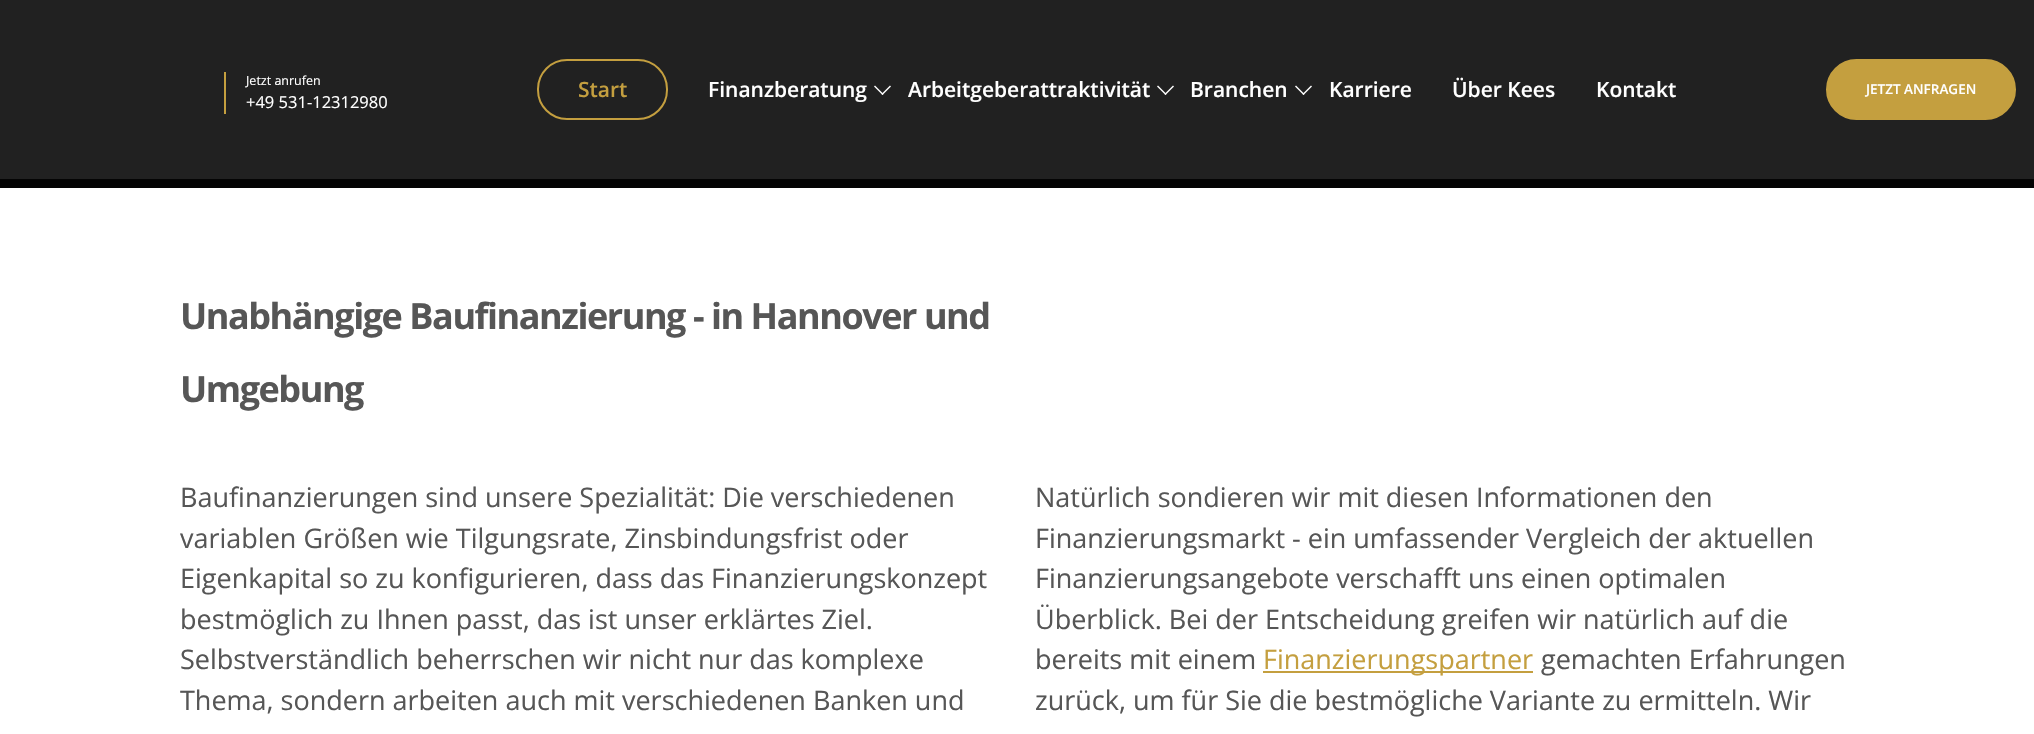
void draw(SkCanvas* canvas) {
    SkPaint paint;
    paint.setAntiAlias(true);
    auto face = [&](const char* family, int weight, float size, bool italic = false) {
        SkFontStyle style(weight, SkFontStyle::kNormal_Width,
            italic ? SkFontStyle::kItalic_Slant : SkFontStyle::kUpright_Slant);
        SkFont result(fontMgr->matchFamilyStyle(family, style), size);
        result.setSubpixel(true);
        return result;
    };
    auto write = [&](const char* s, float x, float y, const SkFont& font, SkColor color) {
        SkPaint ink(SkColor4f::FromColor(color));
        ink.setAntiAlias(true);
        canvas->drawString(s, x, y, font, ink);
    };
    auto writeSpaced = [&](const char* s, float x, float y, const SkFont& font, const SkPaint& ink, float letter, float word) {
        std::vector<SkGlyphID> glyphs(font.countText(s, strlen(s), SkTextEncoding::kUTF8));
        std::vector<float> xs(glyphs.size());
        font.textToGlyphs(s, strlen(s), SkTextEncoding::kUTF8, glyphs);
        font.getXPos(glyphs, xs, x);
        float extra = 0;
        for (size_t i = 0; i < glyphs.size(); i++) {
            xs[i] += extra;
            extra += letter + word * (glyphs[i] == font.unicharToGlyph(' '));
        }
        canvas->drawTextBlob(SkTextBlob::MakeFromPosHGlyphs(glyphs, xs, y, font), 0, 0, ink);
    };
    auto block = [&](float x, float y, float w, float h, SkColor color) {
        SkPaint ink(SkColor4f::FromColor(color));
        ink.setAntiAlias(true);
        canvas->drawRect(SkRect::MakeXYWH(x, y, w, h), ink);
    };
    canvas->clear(SK_ColorWHITE);
    block(0, 0, 2034, 179, SkColorSetRGB(33, 33, 33));
    block(224, 72, 2, 42, SkColorSetRGB(196, 159, 63));
    auto kFont1 = face("Open Sans", 400, 12.5f);
    write("Jetzt anrufen", 246, 85, kFont1, SK_ColorWHITE);
    auto kFont2 = face("Open Sans", 400, 16.5f);
    write("+49 531-12312980", 246, 108, kFont2, SK_ColorWHITE);
    paint.setStyle(SkPaint::kStroke_Style);
    paint.setStrokeWidth(2);
    paint.setColor(SkColorSetRGB(196, 159, 63));
    canvas->drawRoundRect(SkRect::MakeXYWH(538, 60, 129, 59), 29, 29, paint);
    auto kFont3 = face("Open Sans", 600, 21);
    write("Start", 578, 97, kFont3, SkColorSetRGB(196, 159, 63));
    write("Finanzberatung", 708, 97, kFont3, SK_ColorWHITE);
    paint.setStyle(SkPaint::kFill_Style);
    paint.setColor(SK_ColorWHITE);
    canvas->drawPath(SkPathBuilder().moveTo(890, 85.5f).lineTo(891, 86.5f).lineTo(882.5f, 95).lineTo(881.5f, 94).close().detach(), paint);
    canvas->drawPath(SkPathBuilder().moveTo(875, 85.5f).lineTo(883.5f, 94).lineTo(882.5f, 95).lineTo(874, 86.5f).close().detach(), paint);
    write("Arbeitgeberattraktivität", 908, 97, kFont3, SK_ColorWHITE);
    canvas->drawPath(SkPathBuilder().moveTo(1173, 85.5f).lineTo(1174, 86.5f).lineTo(1165.5f, 95).lineTo(1164.5f, 94).close().detach(), paint);
    canvas->drawPath(SkPathBuilder().moveTo(1158, 85.5f).lineTo(1166.5f, 94).lineTo(1165.5f, 95).lineTo(1157, 86.5f).close().detach(), paint);
    write("Branchen", 1190, 97, kFont3, SK_ColorWHITE);
    canvas->drawPath(SkPathBuilder().moveTo(1311, 85.5f).lineTo(1312, 86.5f).lineTo(1303.5f, 95).lineTo(1302.5f, 94).close().detach(), paint);
    canvas->drawPath(SkPathBuilder().moveTo(1296, 85.5f).lineTo(1304.5f, 94).lineTo(1303.5f, 95).lineTo(1295, 86.5f).close().detach(), paint);
    write("Karriere", 1329, 97, kFont3, SK_ColorWHITE);
    write("Über Kees", 1452, 97, kFont3, SK_ColorWHITE);
    write("Kontakt", 1596, 97, kFont3, SK_ColorWHITE);
    paint.setColor(SkColorSetRGB(196, 159, 63));
    canvas->drawRoundRect(SkRect::MakeXYWH(1827, 60, 188, 59), 29.5f, 29.5f, paint);
    paint.setStyle(SkPaint::kStroke_Style);
    canvas->drawRoundRect(SkRect::MakeXYWH(1827, 60, 188, 59), 29.5f, 29.5f, paint);
    auto kFont4 = face("Open Sans", 600, 13.5f);
    write("JETZT ANFRAGEN", 1866, 94, kFont4, SK_ColorWHITE);
    block(0, 179, 2034, 9, SkColorSetRGB(4, 4, 4));
    auto kFont5 = face("Open Sans", 700, 36);
    paint.setStyle(SkPaint::kFill_Style);
    paint.setColor(SkColorSetRGB(86, 86, 86));
    writeSpaced("Unabhängige Baufinanzierung - in Hannover und", 180, 329, kFont5, paint, -1.45f, 0);
    writeSpaced("Umgebung", 180, 402, kFont5, paint, -1.45f, 0);
    auto kFont6 = face("Open Sans", 400, 27);
    write("Baufinanzierungen sind unsere Spezialität: Die verschiedenen", 180, 507, kFont6, SkColorSetRGB(86, 86, 86));
    write("variablen Größen wie Tilgungsrate, Zinsbindungsfrist oder", 180, 548, kFont6, SkColorSetRGB(86, 86, 86));
    write("Eigenkapital so zu konfigurieren, dass das Finanzierungskonzept", 180, 588, kFont6, SkColorSetRGB(86, 86, 86));
    write("bestmöglich zu Ihnen passt, das ist unser erklärtes Ziel.", 180, 629, kFont6, SkColorSetRGB(86, 86, 86));
    write("Selbstverständlich beherrschen wir nicht nur das komplexe", 180, 669, kFont6, SkColorSetRGB(86, 86, 86));
    write("Thema, sondern arbeiten auch mit verschiedenen Banken und", 180, 710, kFont6, SkColorSetRGB(86, 86, 86));
    write("Natürlich sondieren wir mit diesen Informationen den", 1035, 507, kFont6, SkColorSetRGB(86, 86, 86));
    write("Finanzierungsmarkt - ein umfassender Vergleich der aktuellen", 1035, 548, kFont6, SkColorSetRGB(86, 86, 86));
    write("Finanzierungsangebote verschafft uns einen optimalen", 1035, 588, kFont6, SkColorSetRGB(86, 86, 86));
    write("Überblick. Bei der Entscheidung greifen wir natürlich auf die", 1035, 629, kFont6, SkColorSetRGB(86, 86, 86));
    write("bereits mit einem", 1035, 669, kFont6, SkColorSetRGB(86, 86, 86));
    block(1263, 671, 270, 2, SkColorSetRGB(196, 159, 63));
    write("Finanzierungspartner", 1263, 669, kFont6, SkColorSetRGB(196, 159, 63));
    write("gemachten Erfahrungen", 1541, 669, kFont6, SkColorSetRGB(86, 86, 86));
    write("zurück, um für Sie die bestmögliche Variante zu ermitteln. Wir", 1035, 710, kFont6, SkColorSetRGB(86, 86, 86));
}
